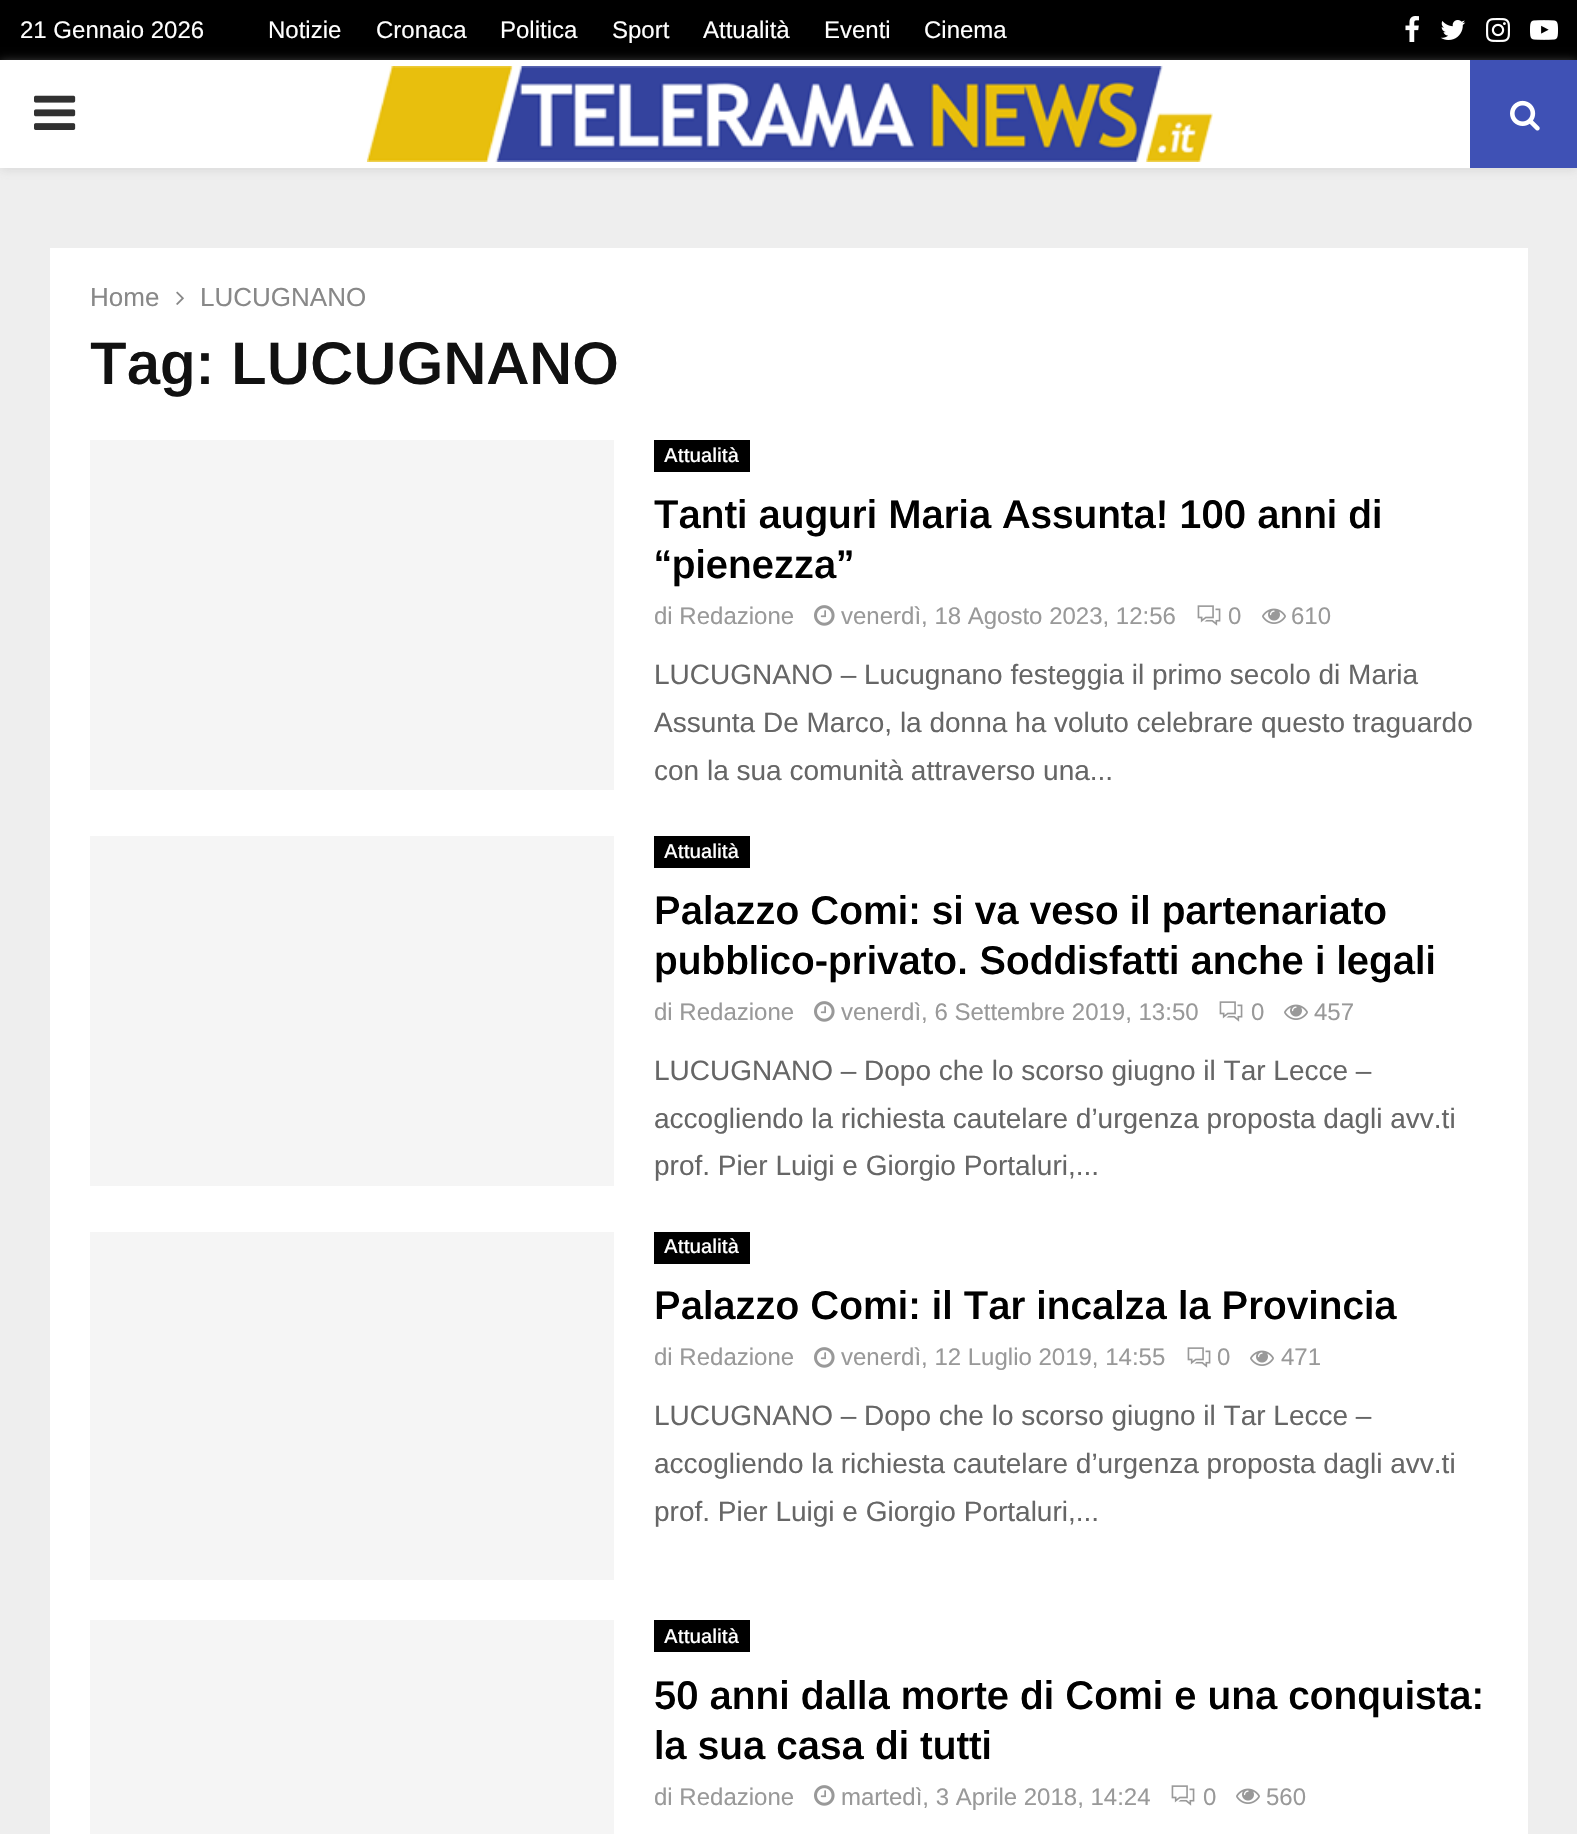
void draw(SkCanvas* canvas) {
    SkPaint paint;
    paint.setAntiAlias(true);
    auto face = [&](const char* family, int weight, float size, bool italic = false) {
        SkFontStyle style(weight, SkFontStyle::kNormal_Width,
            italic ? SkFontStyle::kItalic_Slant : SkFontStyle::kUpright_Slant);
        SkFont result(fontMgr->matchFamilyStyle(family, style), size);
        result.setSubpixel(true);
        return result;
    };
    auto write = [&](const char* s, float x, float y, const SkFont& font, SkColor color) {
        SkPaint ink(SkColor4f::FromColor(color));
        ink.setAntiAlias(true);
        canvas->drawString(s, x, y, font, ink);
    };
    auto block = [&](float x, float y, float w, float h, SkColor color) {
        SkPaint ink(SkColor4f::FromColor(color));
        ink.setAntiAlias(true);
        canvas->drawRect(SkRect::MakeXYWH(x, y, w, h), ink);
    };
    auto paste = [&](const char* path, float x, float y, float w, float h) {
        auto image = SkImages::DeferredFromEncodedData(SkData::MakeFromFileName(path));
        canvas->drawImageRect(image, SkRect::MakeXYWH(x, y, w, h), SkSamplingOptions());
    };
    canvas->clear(SkColorSetRGB(238, 238, 238));
    block(0, 0, 1577, 60, SK_ColorBLACK);
    auto kFont1 = face("Arimo", 400, 24);
    write("21 Gennaio 2026", 20, 38, kFont1, SK_ColorWHITE);
    write("Notizie", 268, 38, kFont1, SK_ColorWHITE);
    write("Cronaca", 376, 38, kFont1, SK_ColorWHITE);
    write("Politica", 500, 38, kFont1, SK_ColorWHITE);
    write("Sport", 612, 38, kFont1, SK_ColorWHITE);
    write("Attualità", 703, 38, kFont1, SK_ColorWHITE);
    write("Eventi", 824, 38, kFont1, SK_ColorWHITE);
    write("Cinema", 924, 38, kFont1, SK_ColorWHITE);
    paste("pic1.png", 1405, 16, 14, 26);
    paste("pic2.png", 1440, 20, 26, 20);
    paste("pic3.png", 1486, 18, 24, 24);
    paste("pic4.png", 1530, 20, 28, 20);
    paint.setColor(SkColorSetARGB(117, 190, 190, 190));
    paint.setMaskFilter(SkMaskFilter::MakeBlur(kNormal_SkBlurStyle, 5));
    canvas->drawRect(SkRect::MakeXYWH(0, 62, 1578, 108), paint);
    paint.setMaskFilter(nullptr);
    block(0, 60, 1470, 108, SK_ColorWHITE);
    paste("pic5.png", 34, 95, 42, 35);
    paste("pic6.png", 366, 66, 847, 96);
    block(1470, 60, 107, 108, SkColorSetRGB(63, 81, 181));
    paste("pic7.png", 1510, 100, 30, 31);
    block(50, 248, 1478, 1586, SK_ColorWHITE);
    auto kFont2 = face("Arimo", 400, 26);
    write("Home", 90, 306, kFont2, SkColorSetRGB(136, 136, 136));
    paste("pic8.png", 176, 291, 8, 14);
    write("LUCUGNANO", 200, 306, kFont2, SkColorSetRGB(136, 136, 136));
    auto kFont3 = face("Arimo", 600, 60);
    write("Tag: LUCUGNANO", 90, 384, kFont3, SkColorSetRGB(17, 17, 17));
    block(90, 440, 524, 350, SkColorSetRGB(245, 245, 245));
    block(654, 440, 96, 32, SK_ColorBLACK);
    auto kFont4 = face("Arimo", 500, 20);
    write("Attualità", 664, 462, kFont4, SK_ColorWHITE);
    auto kFont5 = face("Arimo", 600, 40);
    write("Tanti auguri Maria Assunta! 100 anni di", 654, 528, kFont5, SK_ColorBLACK);
    write("“pienezza”", 654, 578, kFont5, SK_ColorBLACK);
    write("di Redazione", 654, 624, kFont1, SkColorSetRGB(153, 153, 153));
    paste("pic9.png", 814, 605, 21, 21);
    write("venerdì, 18 Agosto 2023, 12:56", 841, 624, kFont1, SkColorSetRGB(153, 153, 153));
    paste("pic10.png", 1197, 605, 24, 21);
    write("0", 1228, 624, kFont1, SkColorSetRGB(153, 153, 153));
    paste("pic11.png", 1262, 608, 24, 16);
    write("610", 1291, 624, kFont1, SkColorSetRGB(153, 153, 153));
    auto kFont6 = face("Arimo", 400, 28);
    write("LUCUGNANO – Lucugnano festeggia il primo secolo di Maria", 654, 684, kFont6, SkColorSetRGB(102, 102, 102));
    write("Assunta De Marco, la donna ha voluto celebrare questo traguardo", 654, 732, kFont6, SkColorSetRGB(102, 102, 102));
    write("con la sua comunità attraverso una...", 654, 780, kFont6, SkColorSetRGB(102, 102, 102));
    block(90, 836, 524, 350, SkColorSetRGB(245, 245, 245));
    block(654, 836, 96, 32, SK_ColorBLACK);
    write("Attualità", 664, 858, kFont4, SK_ColorWHITE);
    write("Palazzo Comi: si va veso il partenariato", 654, 924, kFont5, SK_ColorBLACK);
    write("pubblico-privato. Soddisfatti anche i legali", 654, 974, kFont5, SK_ColorBLACK);
    write("di Redazione", 654, 1020, kFont1, SkColorSetRGB(153, 153, 153));
    paste("pic9.png", 814, 1001, 21, 21);
    write("venerdì, 6 Settembre 2019, 13:50", 841, 1020, kFont1, SkColorSetRGB(153, 153, 153));
    paste("pic10.png", 1219, 1001, 24, 21);
    write("0", 1251, 1020, kFont1, SkColorSetRGB(153, 153, 153));
    paste("pic11.png", 1284, 1004, 24, 16);
    write("457", 1314, 1020, kFont1, SkColorSetRGB(153, 153, 153));
    write("LUCUGNANO – Dopo che lo scorso giugno il Tar Lecce –", 654, 1080, kFont6, SkColorSetRGB(102, 102, 102));
    write("accogliendo la richiesta cautelare d’urgenza proposta dagli avv.ti", 654, 1128, kFont6, SkColorSetRGB(102, 102, 102));
    write("prof. Pier Luigi e Giorgio Portaluri,...", 654, 1175, kFont6, SkColorSetRGB(102, 102, 102));
    block(90, 1232, 524, 348, SkColorSetRGB(245, 245, 245));
    block(654, 1232, 96, 32, SK_ColorBLACK);
    write("Attualità", 664, 1253, kFont4, SK_ColorWHITE);
    write("Palazzo Comi: il Tar incalza la Provincia", 654, 1319, kFont5, SK_ColorBLACK);
    write("di Redazione", 654, 1365, kFont1, SkColorSetRGB(153, 153, 153));
    paste("pic9.png", 814, 1347, 21, 21);
    write("venerdì, 12 Luglio 2019, 14:55", 841, 1365, kFont1, SkColorSetRGB(153, 153, 153));
    paste("pic10.png", 1187, 1347, 24, 21);
    write("0", 1217, 1365, kFont1, SkColorSetRGB(153, 153, 153));
    paste("pic11.png", 1250, 1350, 24, 16);
    write("471", 1281, 1365, kFont1, SkColorSetRGB(153, 153, 153));
    write("LUCUGNANO – Dopo che lo scorso giugno il Tar Lecce –", 654, 1425, kFont6, SkColorSetRGB(102, 102, 102));
    write("accogliendo la richiesta cautelare d’urgenza proposta dagli avv.ti", 654, 1473, kFont6, SkColorSetRGB(102, 102, 102));
    write("prof. Pier Luigi e Giorgio Portaluri,...", 654, 1521, kFont6, SkColorSetRGB(102, 102, 102));
    block(90, 1620, 524, 214, SkColorSetRGB(245, 245, 245));
    block(654, 1620, 96, 32, SK_ColorBLACK);
    write("Attualità", 664, 1643, kFont4, SK_ColorWHITE);
    write("50 anni dalla morte di Comi e una conquista:", 654, 1709, kFont5, SK_ColorBLACK);
    write("la sua casa di tutti", 654, 1759, kFont5, SK_ColorBLACK);
    write("di Redazione", 654, 1805, kFont1, SkColorSetRGB(153, 153, 153));
    paste("pic9.png", 814, 1785, 21, 21);
    write("martedì, 3 Aprile 2018, 14:24", 841, 1805, kFont1, SkColorSetRGB(153, 153, 153));
    paste("pic10.png", 1171, 1785, 24, 21);
    write("0", 1203, 1805, kFont1, SkColorSetRGB(153, 153, 153));
    paste("pic11.png", 1236, 1788, 24, 16);
    write("560", 1266, 1805, kFont1, SkColorSetRGB(153, 153, 153));
}
